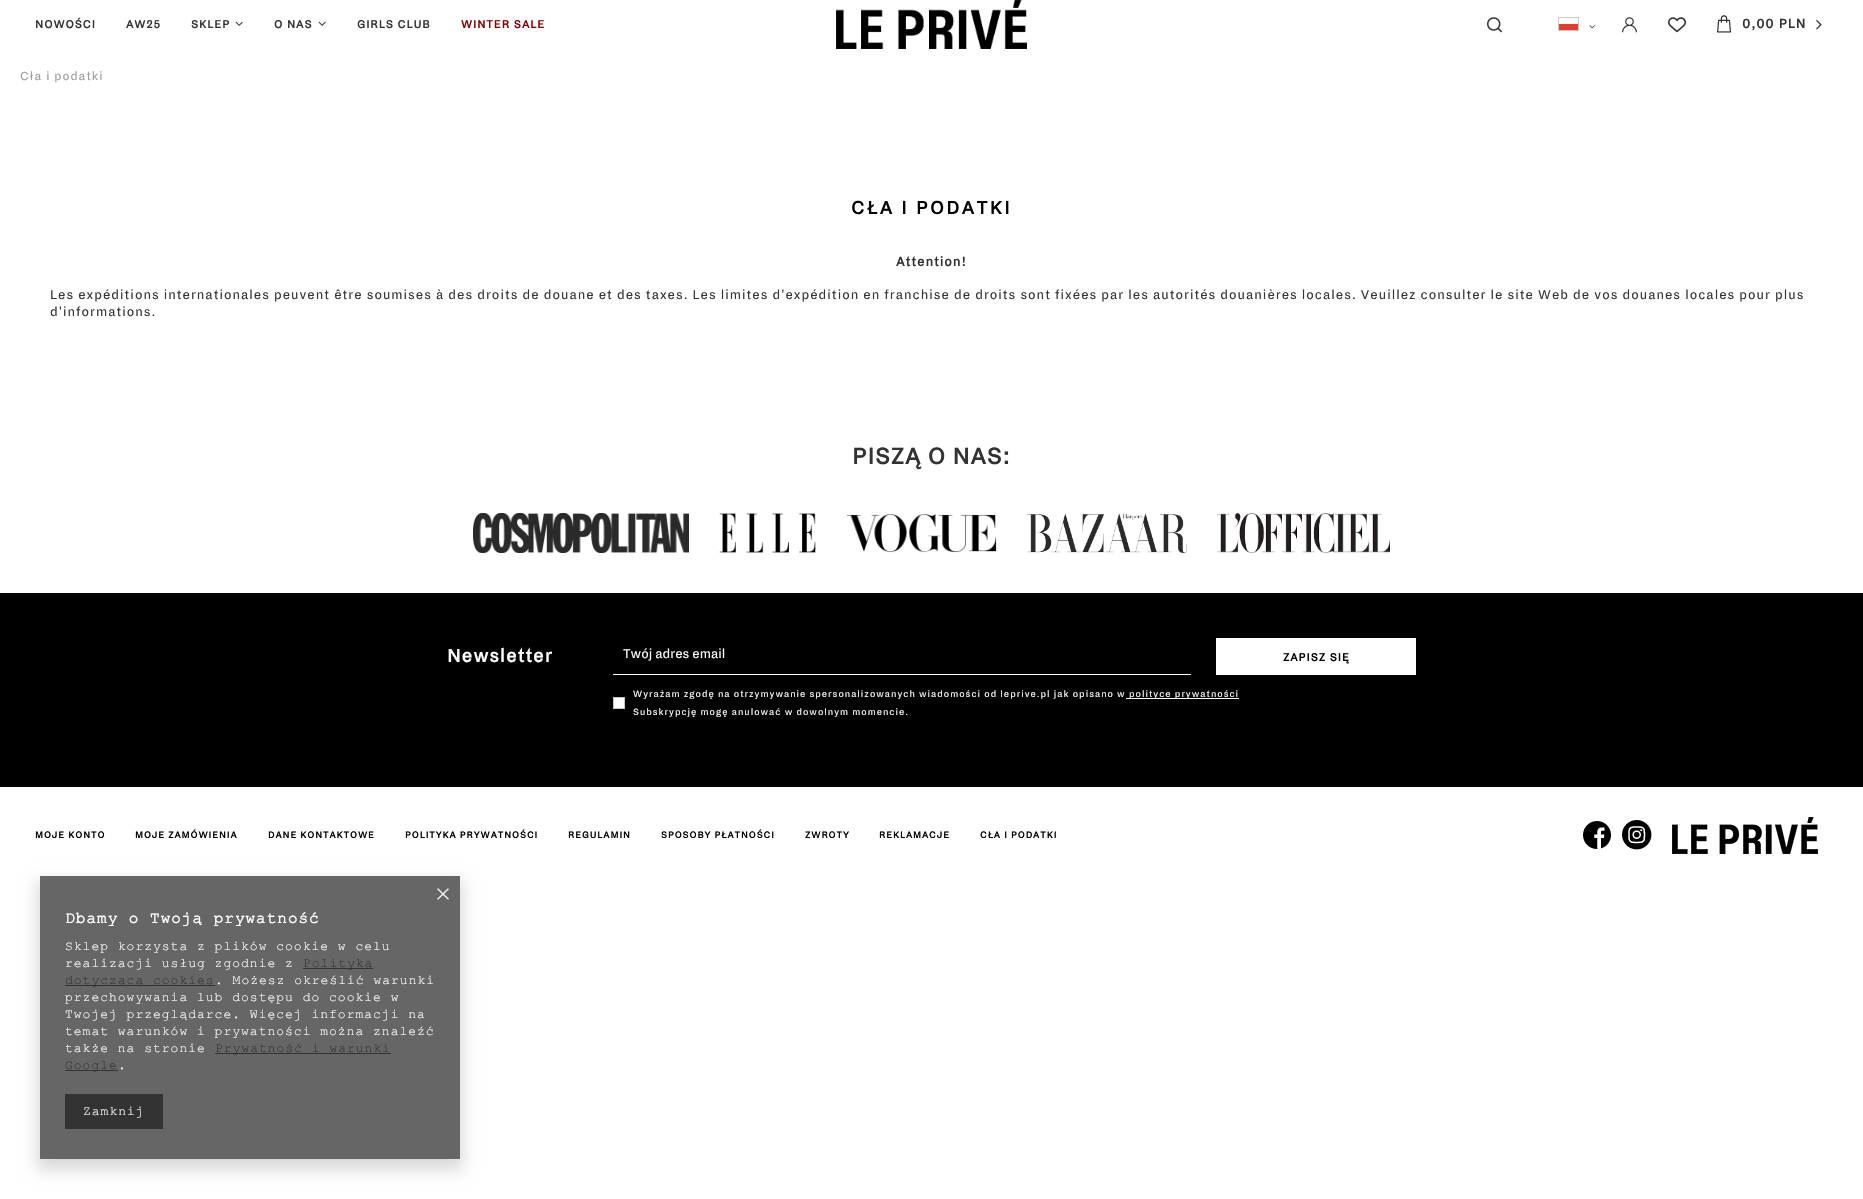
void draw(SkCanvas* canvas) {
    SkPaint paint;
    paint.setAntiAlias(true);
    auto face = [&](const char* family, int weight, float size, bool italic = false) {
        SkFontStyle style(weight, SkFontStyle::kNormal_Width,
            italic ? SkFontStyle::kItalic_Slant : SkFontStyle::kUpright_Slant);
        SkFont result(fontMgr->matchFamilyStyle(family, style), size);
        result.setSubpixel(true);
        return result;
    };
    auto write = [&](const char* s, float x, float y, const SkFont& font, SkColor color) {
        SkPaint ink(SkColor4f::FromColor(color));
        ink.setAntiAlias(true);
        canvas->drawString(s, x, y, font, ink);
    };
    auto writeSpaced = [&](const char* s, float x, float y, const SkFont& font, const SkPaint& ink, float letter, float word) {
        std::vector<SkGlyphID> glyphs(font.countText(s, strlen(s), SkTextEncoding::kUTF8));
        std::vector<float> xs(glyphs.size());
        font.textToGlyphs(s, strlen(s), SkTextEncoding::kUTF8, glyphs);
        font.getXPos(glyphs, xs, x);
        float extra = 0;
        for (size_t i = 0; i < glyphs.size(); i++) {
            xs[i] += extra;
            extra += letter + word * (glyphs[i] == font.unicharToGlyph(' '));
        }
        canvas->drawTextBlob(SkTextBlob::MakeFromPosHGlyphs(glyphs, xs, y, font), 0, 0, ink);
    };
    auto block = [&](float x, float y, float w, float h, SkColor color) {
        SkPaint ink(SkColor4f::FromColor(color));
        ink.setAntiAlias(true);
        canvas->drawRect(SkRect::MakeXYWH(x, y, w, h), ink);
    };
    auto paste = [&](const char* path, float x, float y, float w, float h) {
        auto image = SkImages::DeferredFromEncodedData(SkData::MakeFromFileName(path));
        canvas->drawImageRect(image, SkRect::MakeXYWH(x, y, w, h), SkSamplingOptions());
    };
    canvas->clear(SK_ColorWHITE);
    auto kFont1 = face("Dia", 700, 12);
    paint.setColor(SkColorSetRGB(51, 51, 51));
    writeSpaced("NOWOŚCI", 35, 28, kFont1, paint, 1, 0);
    writeSpaced("AW25", 126, 28, kFont1, paint, 1, 0);
    writeSpaced("SKLEP", 191, 28, kFont1, paint, 1, 0);
    paste("pic1.png", 235, 21, 8, 5);
    writeSpaced("O NAS", 274, 28, kFont1, paint, 1, 0);
    paste("pic1.png", 318, 21, 8, 5);
    writeSpaced("GIRLS CLUB", 357, 28, kFont1, paint, 1, 0);
    paint.setColor(SkColorSetRGB(128, 0, 0));
    writeSpaced("WINTER SALE", 461, 28, kFont1, paint, 1, 0);
    paste("pic2.png", 836, 0, 191, 49);
    paste("pic3.png", 1487, 17, 15, 16);
    paste("pic4.png", 1558, 17, 21, 14);
    paste("pic5.png", 1589, 25, 6, 4);
    paste("pic6.png", 1622, 17, 15, 16);
    paste("pic7.png", 1668, 17, 18, 16);
    paste("pic8.png", 1717, 15, 15, 18);
    auto kFont2 = face("Dia", 700, 14);
    paint.setColor(SkColorSetRGB(51, 51, 51));
    writeSpaced("0,00 PLN", 1742, 28, kFont2, paint, 1, 0);
    paste("pic9.png", 1816, 20, 6, 10);
    auto kFont3 = face("Dia", 400, 13);
    paint.setColor(SkColorSetRGB(156, 156, 156));
    writeSpaced("Cła i podatki", 20, 80, kFont3, paint, 1, 0);
    auto kFont4 = face("Dia", 700, 20);
    paint.setColor(SK_ColorBLACK);
    writeSpaced("CŁA I PODATKI", 851, 214, kFont4, paint, 2.5f, 0);
    paint.setColor(SkColorSetRGB(51, 51, 51));
    writeSpaced("Attention!", 896, 266, kFont2, paint, 1, 0);
    auto kFont5 = face("Dia", 400, 14);
    writeSpaced("Les expéditions internationales peuvent être soumises à des droits de douane et des taxes. Les limites d'expédition en franchise de droits sont fixées par les autorités douanières locales. Veuillez consulter le site Web de vos douanes locales pour plus", 50, 299, kFont5, paint, 1, 0);
    writeSpaced("d'informations.", 50, 316, kFont5, paint, 1, 0);
    auto kFont6 = face("Dia", 700, 25);
    writeSpaced("PISZĄ O NAS:", 852, 464, kFont6, paint, 1, 0);
    paste("pic10.png", 473, 513, 216, 40);
    paste("pic11.png", 719, 513, 97, 40);
    paste("pic12.png", 847, 514, 150, 39);
    paste("pic13.png", 1027, 513, 160, 40);
    paste("pic14.png", 1217, 513, 173, 40);
    block(0, 593, 1863, 194, SK_ColorBLACK);
    paint.setColor(SK_ColorWHITE);
    writeSpaced("Newsletter", 447, 662, kFont4, paint, 1, 0);
    block(613, 674, 578, 1, SK_ColorWHITE);
    write("Twój adres email", 623, 658, kFont5, SK_ColorWHITE);
    block(1216, 638, 200, 37, SK_ColorWHITE);
    paint.setColor(SK_ColorBLACK);
    writeSpaced("ZAPISZ SIĘ", 1283, 661, kFont1, paint, 1, 0);
    auto kFont7 = face("Dia", 400, 10);
    paint.setColor(SK_ColorWHITE);
    writeSpaced("Wyrażam zgodę na otrzymywanie spersonalizowanych wiadomości od leprive.pl jak opisano w", 633, 697, kFont7, paint, 1, 0);
    block(1126, 698, 113, 1, SK_ColorWHITE);
    writeSpaced("polityce prywatności", 1129, 697, kFont7, paint, 1, 0);
    canvas->drawRect(SkRect::MakeXYWH(613.5f, 697.5f, 11, 11), paint);
    paint.setStyle(SkPaint::kStroke_Style);
    paint.setStrokeWidth(1);
    paint.setColor(SkColorSetRGB(196, 199, 200));
    canvas->drawRect(SkRect::MakeXYWH(613.5f, 697.5f, 11, 11), paint);
    paint.setStyle(SkPaint::kFill_Style);
    paint.setColor(SK_ColorWHITE);
    writeSpaced("Subskrypcję mogę anulować w dowolnym momencie.", 633, 715, kFont7, paint, 1, 0);
    auto kFont8 = face("Dia", 700, 10);
    paint.setColor(SK_ColorBLACK);
    writeSpaced("MOJE KONTO", 35, 838, kFont8, paint, 1, 0);
    writeSpaced("MOJE ZAMÓWIENIA", 135, 838, kFont8, paint, 1, 0);
    writeSpaced("DANE KONTAKTOWE", 268, 838, kFont8, paint, 1, 0);
    writeSpaced("POLITYKA PRYWATNOŚCI", 405, 838, kFont8, paint, 1, 0);
    writeSpaced("REGULAMIN", 568, 838, kFont8, paint, 1, 0);
    writeSpaced("SPOSOBY PŁATNOŚCI", 661, 838, kFont8, paint, 1, 0);
    writeSpaced("ZWROTY", 805, 838, kFont8, paint, 1, 0);
    writeSpaced("REKLAMACJE", 879, 838, kFont8, paint, 1, 0);
    writeSpaced("CŁA I PODATKI", 980, 838, kFont8, paint, 1, 0);
    paste("pic15.png", 1583, 821, 28, 28);
    paste("pic16.png", 1622, 820, 30, 30);
    paste("pic17.png", 1672, 817, 146, 37);
    paint.setColor(SkColorSetARGB(38, 0, 0, 0));
    paint.setMaskFilter(SkMaskFilter::MakeBlur(kNormal_SkBlurStyle, 7.5f));
    canvas->drawRect(SkRect::MakeXYWH(37, 881, 426, 289), paint);
    paint.setMaskFilter(nullptr);
    block(40, 876, 420, 283, SkColorSetRGB(102, 102, 102));
    paste("pic18.png", 437, 888, 12, 12);
    auto kFont9 = face("Courier New", 700, 16);
    paint.setColor(SK_ColorWHITE);
    writeSpaced("Dbamy o Twoją prywatność", 65, 923, kFont9, paint, 1, 0);
    auto kFont10 = face("Courier New", 400, 13);
    writeSpaced("Sklep korzysta z plików cookie w celu", 65, 950, kFont10, paint, 1, 0);
    writeSpaced("realizacji usług zgodnie z", 65, 967, kFont10, paint, 1, 0);
    block(303, 968, 70, 1, SkColorSetRGB(51, 51, 51));
    paint.setColor(SkColorSetRGB(51, 51, 51));
    writeSpaced("Polityką", 303, 967, kFont10, paint, 1, 0);
    block(65, 985, 150, 1, SkColorSetRGB(51, 51, 51));
    writeSpaced("dotyczącą cookies", 65, 984, kFont10, paint, 1, 0);
    paint.setColor(SK_ColorWHITE);
    writeSpaced(". Możesz określić warunki", 215, 984, kFont10, paint, 1, 0);
    writeSpaced("przechowywania lub dostępu do cookie w", 65, 1001, kFont10, paint, 1, 0);
    writeSpaced("Twojej przeglądarce. Więcej informacji na", 65, 1018, kFont10, paint, 1, 0);
    writeSpaced("temat warunków i prywatności można znaleźć", 65, 1035, kFont10, paint, 1, 0);
    writeSpaced("także na stronie", 65, 1052, kFont10, paint, 1, 0);
    block(215, 1053, 176, 1, SkColorSetRGB(51, 51, 51));
    paint.setColor(SkColorSetRGB(51, 51, 51));
    writeSpaced("Prywatność i warunki", 215, 1052, kFont10, paint, 1, 0);
    block(65, 1070, 53, 1, SkColorSetRGB(51, 51, 51));
    writeSpaced("Google", 65, 1069, kFont10, paint, 1, 0);
    paint.setColor(SK_ColorWHITE);
    writeSpaced(".", 118, 1069, kFont10, paint, 1, 0);
    block(65, 1094, 98, 35, SkColorSetRGB(51, 51, 51));
    writeSpaced("Zamknij", 83, 1115, kFont10, paint, 1, 0);
}
